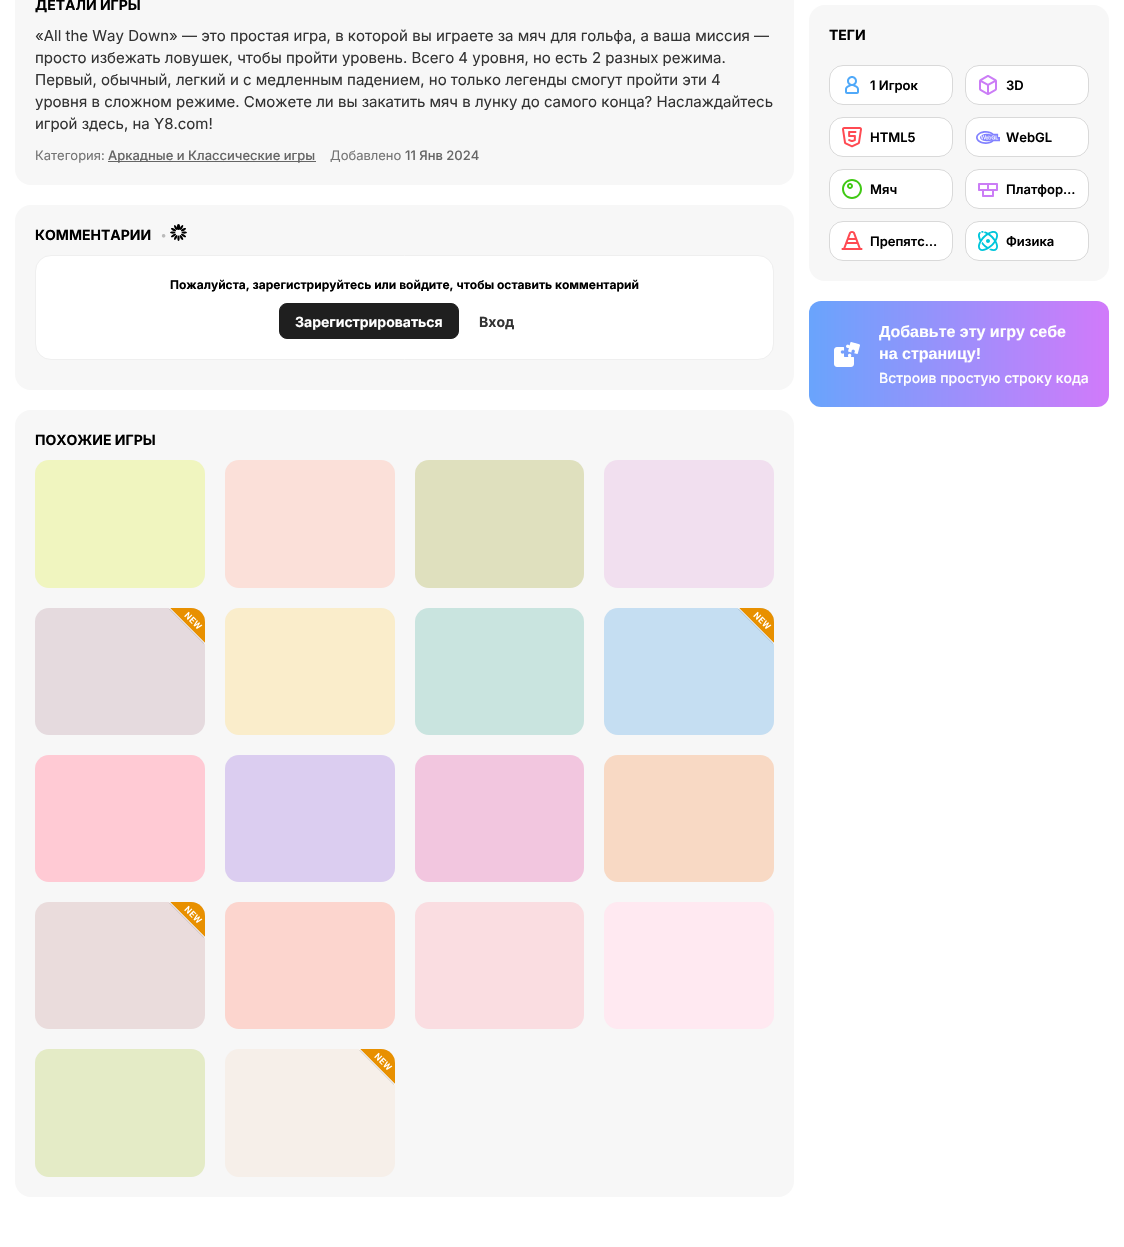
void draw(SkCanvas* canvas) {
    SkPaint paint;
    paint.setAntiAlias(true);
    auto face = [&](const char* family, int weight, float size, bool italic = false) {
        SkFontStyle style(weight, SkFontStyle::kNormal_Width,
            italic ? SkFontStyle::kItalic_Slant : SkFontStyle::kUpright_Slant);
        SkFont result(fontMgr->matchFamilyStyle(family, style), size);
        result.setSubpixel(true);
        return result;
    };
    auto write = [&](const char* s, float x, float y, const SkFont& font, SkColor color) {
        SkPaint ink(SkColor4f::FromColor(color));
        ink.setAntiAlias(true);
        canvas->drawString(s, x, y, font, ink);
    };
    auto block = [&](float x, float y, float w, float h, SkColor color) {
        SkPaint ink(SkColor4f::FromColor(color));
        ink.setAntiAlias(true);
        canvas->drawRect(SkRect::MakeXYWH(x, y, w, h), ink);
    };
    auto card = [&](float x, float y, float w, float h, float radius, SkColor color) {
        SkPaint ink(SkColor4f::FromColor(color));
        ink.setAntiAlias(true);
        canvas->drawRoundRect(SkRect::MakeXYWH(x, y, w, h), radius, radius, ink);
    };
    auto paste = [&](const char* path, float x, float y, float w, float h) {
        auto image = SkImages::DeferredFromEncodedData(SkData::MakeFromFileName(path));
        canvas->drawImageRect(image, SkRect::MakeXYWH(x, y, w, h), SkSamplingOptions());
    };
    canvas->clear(SK_ColorWHITE);
    card(15, -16, 779, 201, 16, SkColorSetRGB(247, 247, 247));
    auto kFont1 = face("Inter", 700, 14);
    write("ДЕТАЛИ ИГРЫ", 35, 10, kFont1, SK_ColorBLACK);
    auto kFont2 = face("Inter", 400, 15);
    write("«All the Way Down» — это простая игра, в которой вы играете за мяч для гольфа, а ваша миссия —", 35, 41, kFont2, SkColorSetRGB(51, 51, 51));
    write("просто избежать ловушек, чтобы пройти уровень. Всего 4 уровня, но есть 2 разных режима.", 35, 63, kFont2, SkColorSetRGB(51, 51, 51));
    write("Первый, обычный, легкий и с медленным падением, но только легенды смогут пройти эти 4", 35, 85, kFont2, SkColorSetRGB(51, 51, 51));
    write("уровня в сложном режиме. Сможете ли вы закатить мяч в лунку до самого конца? Наслаждайтесь", 35, 107, kFont2, SkColorSetRGB(51, 51, 51));
    write("игрой здесь, на Y8.com!", 35, 129, kFont2, SkColorSetRGB(51, 51, 51));
    auto kFont3 = face("Inter", 400, 13);
    write("Категория:", 35, 160, kFont3, SkColorSetRGB(117, 117, 117));
    block(108, 161, 208, 1, SkColorSetRGB(102, 102, 102));
    auto kFont4 = face("Inter", 500, 13);
    write("Аркадные и Классические игры", 108, 160, kFont4, SkColorSetRGB(102, 102, 102));
    write("Добавлено", 330, 160, kFont3, SkColorSetRGB(117, 117, 117));
    write("11 Янв 2024", 405, 160, kFont4, SkColorSetRGB(102, 102, 102));
    card(15, 205, 779, 185, 16, SkColorSetRGB(247, 247, 247));
    write("КОММЕНТАРИИ", 35, 240, kFont1, SK_ColorBLACK);
    auto kFont5 = face("Inter", 700, 11);
    write("•", 161, 239, kFont5, SkColorSetRGB(187, 187, 187));
    card(177, 224, 3, 6, 1.5f, SK_ColorBLACK);
    paint.setColor(SK_ColorBLACK);
    canvas->drawPath(SkPathBuilder().moveTo(183, 225).cubicTo(184, 226, 181.5f, 230.5f, 180, 230).cubicTo(178.5f, 229, 181.5f, 224.5f, 183, 225).close().detach(), paint);
    canvas->drawPath(SkPathBuilder().moveTo(186, 228.5f).cubicTo(186.5f, 229.5f, 182, 232.5f, 181, 231).cubicTo(180.5f, 229.5f, 185, 227, 186, 228.5f).close().detach(), paint);
    canvas->drawPath(SkPathBuilder().moveTo(187, 232.5f).cubicTo(187, 234, 181.5f, 234, 181.5f, 232.5f).cubicTo(181.5f, 231, 187, 231, 187, 232.5f).close().detach(), paint);
    canvas->drawPath(SkPathBuilder().moveTo(186, 237).cubicTo(185, 238, 180.5f, 235.5f, 181, 234).cubicTo(182, 233, 186.5f, 235.5f, 186, 237).close().detach(), paint);
    canvas->drawPath(SkPathBuilder().moveTo(183, 240).cubicTo(181.5f, 240.5f, 178.5f, 236, 180, 235).cubicTo(181.5f, 234.5f, 184, 239, 183, 240).close().detach(), paint);
    canvas->drawPath(SkPathBuilder().moveTo(178.5f, 241).cubicTo(177, 241, 177, 235.5f, 178.5f, 235.5f).cubicTo(180, 235.5f, 180, 241, 178.5f, 241).close().detach(), paint);
    canvas->drawPath(SkPathBuilder().moveTo(174.5f, 240).cubicTo(173, 239, 175.5f, 234.5f, 177, 235).cubicTo(178.5f, 236, 175.5f, 240.5f, 174.5f, 240).close().detach(), paint);
    canvas->drawPath(SkPathBuilder().moveTo(171, 237).cubicTo(170.5f, 235.5f, 175, 233, 176, 234).cubicTo(176.5f, 235.5f, 172, 238, 171, 237).close().detach(), paint);
    canvas->drawPath(SkPathBuilder().moveTo(170, 232.5f).cubicTo(170, 231, 175.5f, 231, 175.5f, 232.5f).cubicTo(175.5f, 234, 170, 234, 170, 232.5f).close().detach(), paint);
    canvas->drawPath(SkPathBuilder().moveTo(171, 228.5f).cubicTo(172, 227, 176.5f, 229.5f, 176, 231).cubicTo(175, 232.5f, 170.5f, 229.5f, 171, 228.5f).close().detach(), paint);
    canvas->drawPath(SkPathBuilder().moveTo(174.5f, 225).cubicTo(175.5f, 224.5f, 178.5f, 229, 177, 230).cubicTo(175.5f, 230.5f, 173, 226, 174.5f, 225).close().detach(), paint);
    paint.setColor(SK_ColorWHITE);
    canvas->drawRoundRect(SkRect::MakeXYWH(35.5f, 255.5f, 738, 104), 15.5f, 15.5f, paint);
    paint.setStyle(SkPaint::kStroke_Style);
    paint.setStrokeWidth(1);
    paint.setColor(SkColorSetRGB(239, 239, 239));
    canvas->drawRoundRect(SkRect::MakeXYWH(35.5f, 255.5f, 738, 104), 15.5f, 15.5f, paint);
    auto kFont6 = face("Inter", 700, 12);
    write("Пожалуйста, зарегистрируйтесь или войдите, чтобы оставить комментарий", 170, 289, kFont6, SK_ColorBLACK);
    paint.setStyle(SkPaint::kFill_Style);
    paint.setColor(SkColorSetRGB(31, 31, 31));
    canvas->drawRoundRect(SkRect::MakeXYWH(279.5f, 303.5f, 179, 35), 7.5f, 7.5f, paint);
    paint.setStyle(SkPaint::kStroke_Style);
    canvas->drawRoundRect(SkRect::MakeXYWH(279.5f, 303.5f, 179, 35), 7.5f, 7.5f, paint);
    write("Зарегистрироваться", 295, 327, kFont1, SK_ColorWHITE);
    write("Вход", 479, 327, kFont1, SkColorSetRGB(51, 51, 51));
    card(15, 410, 779, 787, 16, SkColorSetRGB(247, 247, 247));
    write("ПОХОЖИЕ ИГРЫ", 35, 445, kFont1, SK_ColorBLACK);
    card(35, 460, 170, 128, 14, SkColorSetRGB(240, 245, 191));
    card(225, 460, 170, 128, 14, SkColorSetRGB(251, 224, 217));
    card(415, 460, 169, 128, 14, SkColorSetRGB(223, 224, 190));
    card(604, 460, 170, 128, 14, SkColorSetRGB(241, 223, 239));
    card(35, 608, 170, 127, 14, SkColorSetRGB(229, 218, 222));
    paste("pic1.png", 169, 608, 36, 36);
    card(225, 608, 170, 127, 14, SkColorSetRGB(250, 237, 203));
    card(415, 608, 169, 127, 14, SkColorSetRGB(201, 228, 223));
    card(604, 608, 170, 127, 14, SkColorSetRGB(197, 222, 242));
    paste("pic2.png", 738, 608, 36, 36);
    card(35, 755, 170, 127, 14, SkColorSetRGB(255, 202, 212));
    card(225, 755, 170, 127, 14, SkColorSetRGB(219, 205, 240));
    card(415, 755, 169, 127, 14, SkColorSetRGB(242, 198, 223));
    card(604, 755, 170, 127, 14, SkColorSetRGB(248, 217, 196));
    card(35, 902, 170, 127, 14, SkColorSetRGB(234, 220, 220));
    paste("pic3.png", 169, 902, 36, 36);
    card(225, 902, 170, 127, 14, SkColorSetRGB(252, 213, 206));
    card(415, 902, 169, 127, 14, SkColorSetRGB(250, 221, 225));
    card(604, 902, 170, 127, 14, SkColorSetRGB(255, 233, 241));
    card(35, 1049, 170, 128, 14, SkColorSetRGB(228, 235, 198));
    card(225, 1049, 170, 128, 14, SkColorSetRGB(246, 239, 233));
    paste("pic4.png", 359, 1049, 36, 36);
    card(809, 5, 300, 276, 16, SkColorSetRGB(247, 247, 247));
    write("ТЕГИ", 829, 40, kFont1, SK_ColorBLACK);
    card(829, 65, 124, 40, 14, SK_ColorWHITE);
    paint.setColor(SkColorSetARGB(38, 0, 0, 0));
    canvas->drawRoundRect(SkRect::MakeXYWH(829.5f, 65.5f, 123, 39), 13.5f, 13.5f, paint);
    paste("pic5.png", 845, 76, 14, 18);
    auto kFont7 = face("Inter", 600, 13);
    write("1 Игрок", 870, 90, kFont7, SK_ColorBLACK);
    card(965, 65, 124, 40, 14, SK_ColorWHITE);
    canvas->drawRoundRect(SkRect::MakeXYWH(965.5f, 65.5f, 123, 39), 13.5f, 13.5f, paint);
    paste("pic6.png", 979, 75, 18, 20);
    write("3D", 1006, 90, kFont7, SK_ColorBLACK);
    card(829, 117, 124, 40, 14, SK_ColorWHITE);
    canvas->drawRoundRect(SkRect::MakeXYWH(829.5f, 117.5f, 123, 39), 13.5f, 13.5f, paint);
    paste("pic7.png", 842, 127, 20, 21);
    write("HTML5", 870, 142, kFont7, SK_ColorBLACK);
    card(965, 117, 124, 40, 14, SK_ColorWHITE);
    canvas->drawRoundRect(SkRect::MakeXYWH(965.5f, 117.5f, 123, 39), 13.5f, 13.5f, paint);
    paste("pic8.png", 976, 131, 24, 13);
    write("WebGL", 1006, 142, kFont7, SK_ColorBLACK);
    card(829, 169, 124, 40, 14, SK_ColorWHITE);
    canvas->drawRoundRect(SkRect::MakeXYWH(829.5f, 169.5f, 123, 39), 13.5f, 13.5f, paint);
    paste("pic9.png", 842, 179, 20, 20);
    write("Мяч", 870, 194, kFont7, SK_ColorBLACK);
    card(965, 169, 124, 40, 14, SK_ColorWHITE);
    canvas->drawRoundRect(SkRect::MakeXYWH(965.5f, 169.5f, 123, 39), 13.5f, 13.5f, paint);
    paste("pic10.png", 978, 183, 20, 14);
    write("Платфор…", 1006, 194, kFont7, SK_ColorBLACK);
    card(829, 221, 124, 40, 14, SK_ColorWHITE);
    canvas->drawRoundRect(SkRect::MakeXYWH(829.5f, 221.5f, 123, 39), 13.5f, 13.5f, paint);
    paste("pic11.png", 841, 231, 22, 19);
    write("Препятс…", 870, 246, kFont7, SK_ColorBLACK);
    card(965, 221, 124, 40, 14, SK_ColorWHITE);
    canvas->drawRoundRect(SkRect::MakeXYWH(965.5f, 221.5f, 123, 39), 13.5f, 13.5f, paint);
    paste("pic12.png", 978, 231, 20, 20);
    write("Физика", 1006, 246, kFont7, SK_ColorBLACK);
    paint.setStyle(SkPaint::kFill_Style);
    {
        const SkColor colors[] = {SkColorSetRGB(105, 164, 252), SkColorSetRGB(209, 122, 250)};
        const float stops[] = {0, 1};
        const SkPoint ends[] = {{809, 354}, {1109, 354}};
        paint.setShader(SkGradientShader::MakeLinear(ends, colors, stops, 2, SkTileMode::kClamp));
        paint.setAlpha(255);
    }
    canvas->drawRoundRect(SkRect::MakeXYWH(809, 301, 300, 106), 12, 12, paint);
    paste("pic13.png", 834, 342, 26, 25);
    auto kFont8 = face("Liberation Sans", 700, 16);
    write("Добавьте эту игру себе", 879, 337, kFont8, SK_ColorWHITE);
    write("на страницу!", 879, 359, kFont8, SK_ColorWHITE);
    auto kFont9 = face("Inter", 500, 14);
    write("Встроив простую строку кода", 879, 383, kFont9, SK_ColorWHITE);
}
